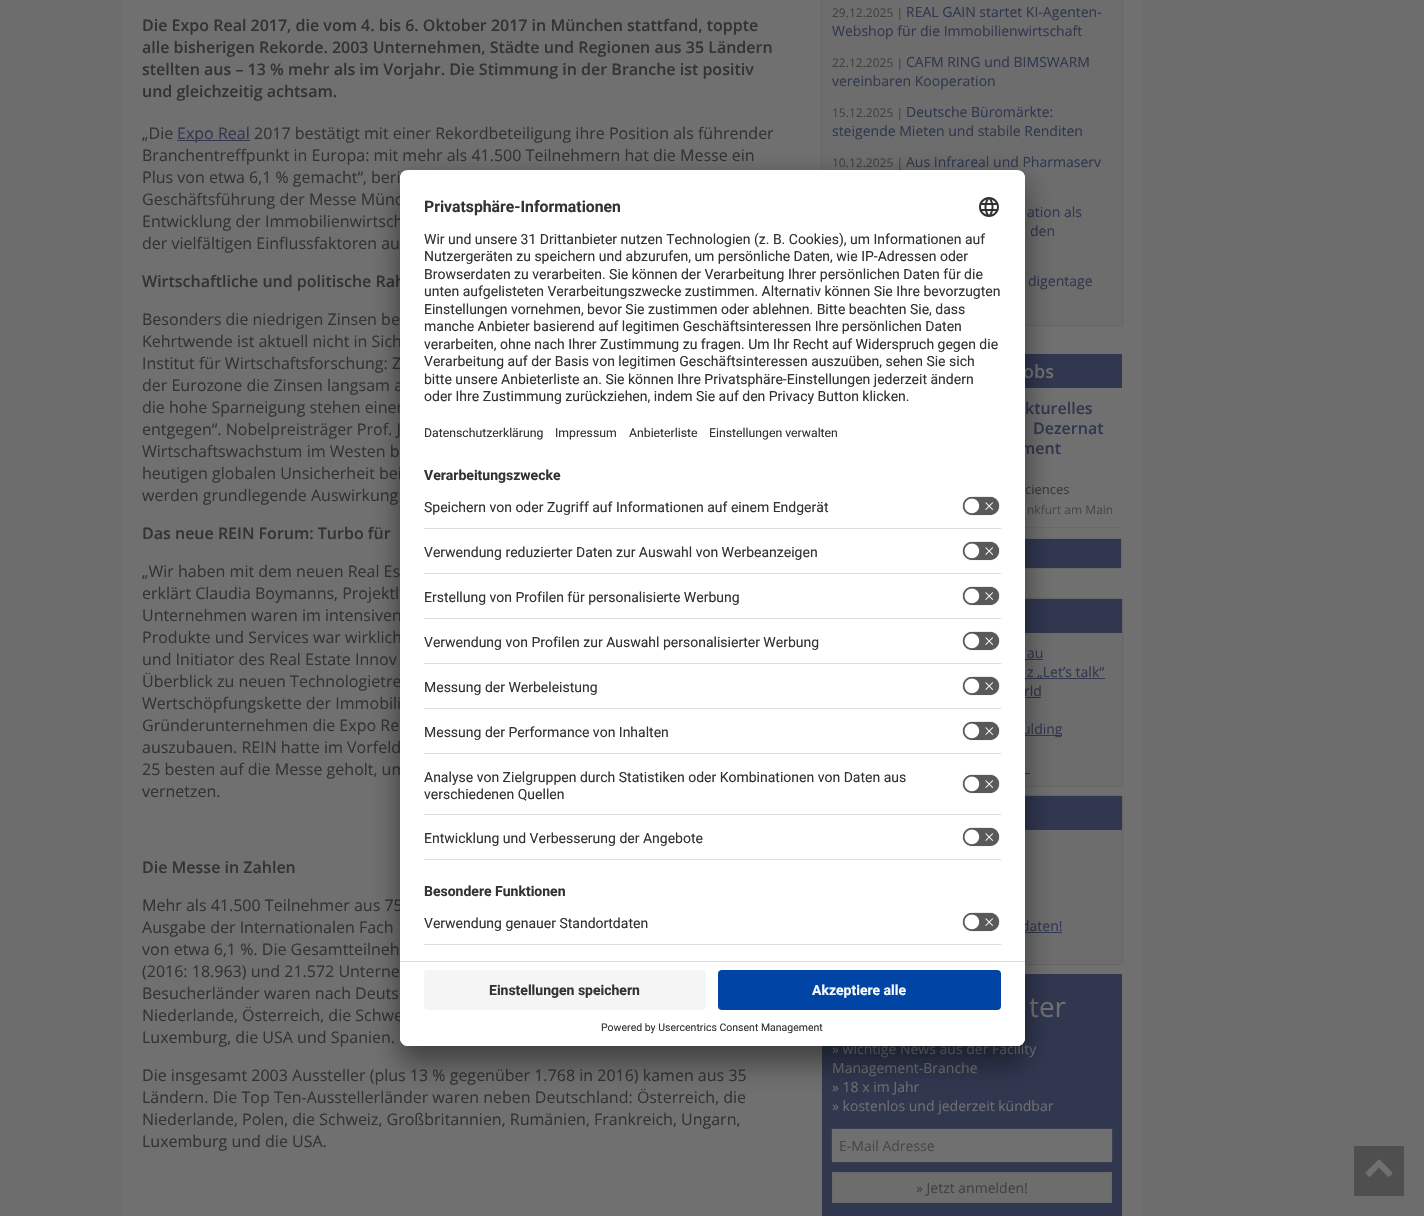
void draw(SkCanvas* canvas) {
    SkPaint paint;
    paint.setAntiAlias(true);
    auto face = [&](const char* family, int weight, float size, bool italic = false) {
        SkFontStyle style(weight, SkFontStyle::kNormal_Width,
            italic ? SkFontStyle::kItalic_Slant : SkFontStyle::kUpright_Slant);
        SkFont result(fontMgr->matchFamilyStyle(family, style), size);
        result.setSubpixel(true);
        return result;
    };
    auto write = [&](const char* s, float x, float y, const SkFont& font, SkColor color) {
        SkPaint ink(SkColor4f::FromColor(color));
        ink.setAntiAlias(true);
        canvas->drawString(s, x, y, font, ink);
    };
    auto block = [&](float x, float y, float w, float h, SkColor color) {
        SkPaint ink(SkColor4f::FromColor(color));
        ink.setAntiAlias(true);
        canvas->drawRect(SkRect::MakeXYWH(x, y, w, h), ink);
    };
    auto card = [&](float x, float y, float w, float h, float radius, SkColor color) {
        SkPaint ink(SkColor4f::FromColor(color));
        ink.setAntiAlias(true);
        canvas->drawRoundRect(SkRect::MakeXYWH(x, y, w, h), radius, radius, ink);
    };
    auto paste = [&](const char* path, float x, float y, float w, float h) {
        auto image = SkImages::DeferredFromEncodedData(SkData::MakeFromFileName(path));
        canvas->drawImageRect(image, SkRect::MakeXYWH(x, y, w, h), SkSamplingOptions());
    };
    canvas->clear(SkColorSetRGB(109, 109, 109));
    block(122, 0, 1020, 1216, SkColorSetRGB(112, 112, 112));
    auto kFont1 = face("Open Sans", 600, 16);
    write("Die Expo Real 2017, die vom 4. bis 6. Oktober 2017 in München stattfand, toppte", 142, 31, kFont1, SkColorSetRGB(51, 51, 51));
    write("alle bisherigen Rekorde. 2003 Unternehmen, Städte und Regionen aus 35 Ländern", 142, 53, kFont1, SkColorSetRGB(51, 51, 51));
    write("stellten aus – 13 % mehr als im Vorjahr. Die Stimmung in der Branche ist positiv", 142, 75, kFont1, SkColorSetRGB(51, 51, 51));
    write("und gleichzeitig achtsam.", 142, 97, kFont1, SkColorSetRGB(51, 51, 51));
    auto kFont2 = face("Open Sans", 400, 16);
    write("„Die", 142, 139, kFont2, SkColorSetRGB(51, 51, 51));
    block(177, 140, 73, 1, SkColorSetRGB(48, 55, 79));
    write("Expo Real", 177, 139, kFont2, SkColorSetRGB(48, 55, 79));
    write("2017 bestätigt mit einer Rekordbeteiligung ihre Position als führender", 254, 139, kFont2, SkColorSetRGB(51, 51, 51));
    write("Branchentreffpunkt in Europa: mit mehr als 41.500 Teilnehmern hat die Messe ein", 142, 161, kFont2, SkColorSetRGB(51, 51, 51));
    write("Plus von etwa 6,1 % gemacht“, beri", 142, 183, kFont2, SkColorSetRGB(51, 51, 51));
    write("Geschäftsführung der Messe Münc", 142, 205, kFont2, SkColorSetRGB(51, 51, 51));
    write("Entwicklung der Immobilienwirtsch", 142, 227, kFont2, SkColorSetRGB(51, 51, 51));
    write("der vielfältigen Einflussfaktoren au", 142, 249, kFont2, SkColorSetRGB(51, 51, 51));
    write("Wirtschaftliche und politische Rah", 142, 287, kFont1, SkColorSetRGB(51, 51, 51));
    write("Besonders die niedrigen Zinsen be", 142, 325, kFont2, SkColorSetRGB(51, 51, 51));
    write("Kehrtwende ist aktuell nicht in Sich", 142, 347, kFont2, SkColorSetRGB(51, 51, 51));
    write("Institut für Wirtschaftsforschung: Z", 142, 369, kFont2, SkColorSetRGB(51, 51, 51));
    write("der Eurozone die Zinsen langsam a", 142, 391, kFont2, SkColorSetRGB(51, 51, 51));
    write("die hohe Sparneigung stehen einer", 142, 413, kFont2, SkColorSetRGB(51, 51, 51));
    write("entgegen“. Nobelpreisträger Prof. J", 142, 435, kFont2, SkColorSetRGB(51, 51, 51));
    write("Wirtschaftswachstum im Westen b", 142, 457, kFont2, SkColorSetRGB(51, 51, 51));
    write("heutigen globalen Unsicherheit bei", 142, 479, kFont2, SkColorSetRGB(51, 51, 51));
    write("werden grundlegende Auswirkung", 142, 501, kFont2, SkColorSetRGB(51, 51, 51));
    write("Das neue REIN Forum: Turbo für", 142, 539, kFont1, SkColorSetRGB(51, 51, 51));
    write("„Wir haben mit dem neuen Real Es", 142, 577, kFont2, SkColorSetRGB(51, 51, 51));
    write("erklärt Claudia Boymanns, Projektl", 142, 599, kFont2, SkColorSetRGB(51, 51, 51));
    write("Unternehmen waren im intensiven", 142, 621, kFont2, SkColorSetRGB(51, 51, 51));
    write("Produkte und Services war wirklich", 142, 643, kFont2, SkColorSetRGB(51, 51, 51));
    write("und Initiator des Real Estate Innov", 142, 665, kFont2, SkColorSetRGB(51, 51, 51));
    write("Überblick zu neuen Technologietre", 142, 687, kFont2, SkColorSetRGB(51, 51, 51));
    write("Wertschöpfungskette der Immobili", 142, 709, kFont2, SkColorSetRGB(51, 51, 51));
    write("Gründerunternehmen die Expo Re", 142, 731, kFont2, SkColorSetRGB(51, 51, 51));
    write("auszubauen. REIN hatte im Vorfeld", 142, 753, kFont2, SkColorSetRGB(51, 51, 51));
    write("25 besten auf die Messe geholt, um", 142, 775, kFont2, SkColorSetRGB(51, 51, 51));
    write("vernetzen.", 142, 797, kFont2, SkColorSetRGB(51, 51, 51));
    write("Die Messe in Zahlen", 142, 873, kFont1, SkColorSetRGB(51, 51, 51));
    write("Mehr als 41.500 Teilnehmer aus 75", 142, 911, kFont2, SkColorSetRGB(51, 51, 51));
    write("Ausgabe der Internationalen Fach", 142, 933, kFont2, SkColorSetRGB(51, 51, 51));
    write("von etwa 6,1 %. Die Gesamtteilneh", 142, 955, kFont2, SkColorSetRGB(51, 51, 51));
    write("(2016: 18.963) und 21.572 Unterne", 142, 977, kFont2, SkColorSetRGB(51, 51, 51));
    write("Besucherländer waren nach Deuts", 142, 999, kFont2, SkColorSetRGB(51, 51, 51));
    write("Niederlande, Österreich, die Schwe", 142, 1021, kFont2, SkColorSetRGB(51, 51, 51));
    write("Luxemburg, die USA und Spanien.", 142, 1043, kFont2, SkColorSetRGB(51, 51, 51));
    write("Die insgesamt 2003 Aussteller (plus 13 % gegenüber 1.768 in 2016) kamen aus 35", 142, 1081, kFont2, SkColorSetRGB(51, 51, 51));
    write("Ländern. Die Top Ten-Ausstellerländer waren neben Deutschland: Österreich, die", 142, 1103, kFont2, SkColorSetRGB(51, 51, 51));
    write("Niederlande, Polen, die Schweiz, Großbritannien, Rumänien, Frankreich, Ungarn,", 142, 1125, kFont2, SkColorSetRGB(51, 51, 51));
    write("Luxemburg und die USA.", 142, 1147, kFont2, SkColorSetRGB(51, 51, 51));
    paint.setColor(SkColorSetRGB(82, 82, 82));
    paint.setMaskFilter(SkMaskFilter::MakeBlur(kNormal_SkBlurStyle, 1));
    canvas->drawRect(SkRect::MakeXYWH(822, -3, 300, 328), paint);
    paint.setMaskFilter(nullptr);
    block(822, 0, 300, 325, SkColorSetRGB(109, 109, 109));
    auto kFont3 = face("Open Sans", 400, 12);
    write("29.12.2025 |", 832, 17, kFont3, SkColorSetRGB(65, 65, 65));
    auto kFont4 = face("Open Sans", 400, 14);
    write("REAL GAIN startet KI-Agenten-", 906, 17, kFont4, SkColorSetRGB(48, 55, 79));
    write("Webshop für die Immobilienwirtschaft", 832, 36, kFont4, SkColorSetRGB(48, 55, 79));
    write("22.12.2025 |", 832, 67, kFont3, SkColorSetRGB(65, 65, 65));
    write("CAFM RING und BIMSWARM", 906, 67, kFont4, SkColorSetRGB(48, 55, 79));
    write("vereinbaren Kooperation", 832, 86, kFont4, SkColorSetRGB(48, 55, 79));
    write("15.12.2025 |", 832, 117, kFont3, SkColorSetRGB(65, 65, 65));
    write("Deutsche Büromärkte:", 906, 117, kFont4, SkColorSetRGB(48, 55, 79));
    write("steigende Mieten und stabile Renditen", 832, 136, kFont4, SkColorSetRGB(48, 55, 79));
    write("10.12.2025 |", 832, 167, kFont3, SkColorSetRGB(65, 65, 65));
    write("Aus Infrareal und Pharmaserv", 906, 167, kFont4, SkColorSetRGB(48, 55, 79));
    write("ation als", 1027, 217, kFont4, SkColorSetRGB(48, 55, 79));
    write("den", 1030, 236, kFont4, SkColorSetRGB(48, 55, 79));
    write("digentage", 1028, 286, kFont4, SkColorSetRGB(48, 55, 79));
    block(1025, 354, 97, 34, SkColorSetRGB(48, 55, 79));
    auto kFont5 = face("Open Sans", 600, 18);
    write("obs", 1023, 378, kFont5, SkColorSetRGB(112, 112, 112));
    block(1025, 527, 97, 1, SkColorSetRGB(105, 105, 105));
    write("kturelles", 1025, 414, kFont1, SkColorSetRGB(48, 55, 79));
    write("Dezernat", 1033, 434, kFont1, SkColorSetRGB(48, 55, 79));
    write("ment", 1020, 454, kFont1, SkColorSetRGB(48, 55, 79));
    auto kFont6 = face("Open Sans", 400, 13);
    write("ciences", 1025, 494, kFont6, SkColorSetRGB(58, 58, 58));
    write("nkfurt am Main", 1027, 514, kFont3, SkColorSetRGB(71, 71, 71));
    block(1025, 539, 96, 29, SkColorSetRGB(48, 55, 79));
    paint.setStyle(SkPaint::kStroke_Style);
    paint.setStrokeWidth(1);
    paint.setColor(SkColorSetRGB(105, 105, 105));
    canvas->drawRect(SkRect::MakeXYWH(822.5f, 538.5f, 299, 30), paint);
    paint.setStyle(SkPaint::kFill_Style);
    paint.setColor(SkColorSetRGB(82, 82, 82));
    paint.setMaskFilter(SkMaskFilter::MakeBlur(kNormal_SkBlurStyle, 1));
    canvas->drawRect(SkRect::MakeXYWH(822, 599, 300, 187), paint);
    paint.setMaskFilter(nullptr);
    block(1025, 633, 97, 153, SkColorSetRGB(109, 109, 109));
    block(1025, 599, 97, 34, SkColorSetRGB(48, 55, 79));
    write("au", 1027, 658, kFont4, SkColorSetRGB(48, 55, 79));
    block(1025, 659, 18, 1, SkColorSetRGB(48, 55, 79));
    block(1025, 678, 80, 1, SkColorSetRGB(48, 55, 79));
    write("z „Let’s talk“", 1027, 677, kFont4, SkColorSetRGB(48, 55, 79));
    write("rld", 1024, 696, kFont4, SkColorSetRGB(48, 55, 79));
    block(1025, 697, 16, 1, SkColorSetRGB(48, 55, 79));
    block(1025, 735, 37, 1, SkColorSetRGB(48, 55, 79));
    write("ulding", 1022, 734, kFont4, SkColorSetRGB(48, 55, 79));
    block(1025, 773, 5, 1, SkColorSetRGB(48, 55, 79));
    paint.setMaskFilter(SkMaskFilter::MakeBlur(kNormal_SkBlurStyle, 1));
    canvas->drawRect(SkRect::MakeXYWH(822, 796, 300, 168), paint);
    paint.setMaskFilter(nullptr);
    block(1025, 830, 97, 134, SkColorSetRGB(109, 109, 109));
    block(1025, 796, 97, 34, SkColorSetRGB(48, 55, 79));
    write("daten!", 1021, 931, kFont4, SkColorSetRGB(48, 55, 79));
    block(1025, 932, 37, 1, SkColorSetRGB(48, 55, 79));
    block(822, 974, 300, 242, SkColorSetRGB(48, 55, 79));
    auto kFont7 = face("Open Sans", 400, 28);
    write("ter", 1029, 1017, kFont7, SkColorSetRGB(112, 112, 112));
    write("» wichtige News aus der Facility", 832, 1054, kFont4, SkColorSetRGB(112, 112, 112));
    write("Management-Branche", 832, 1073, kFont4, SkColorSetRGB(112, 112, 112));
    write("» 18 x im Jahr", 832, 1092, kFont4, SkColorSetRGB(112, 112, 112));
    write("» kostenlos und jederzeit kündbar", 832, 1111, kFont4, SkColorSetRGB(112, 112, 112));
    paint.setMaskFilter(SkMaskFilter::MakeBlur(kNormal_SkBlurStyle, 1));
    canvas->drawRect(SkRect::MakeXYWH(832, 1129, 280, 33), paint);
    paint.setMaskFilter(nullptr);
    block(832, 1129, 280, 33, SkColorSetRGB(112, 112, 112));
    write("E-Mail Adresse", 839, 1151, kFont4, SkColorSetRGB(71, 71, 71));
    paint.setColor(SkColorSetRGB(109, 109, 109));
    canvas->drawRect(SkRect::MakeXYWH(832.5f, 1172.5f, 279, 30), paint);
    paint.setStyle(SkPaint::kStroke_Style);
    paint.setColor(SkColorSetRGB(105, 105, 105));
    canvas->drawRect(SkRect::MakeXYWH(832.5f, 1172.5f, 279, 30), paint);
    write("» Jetzt anmelden!", 916, 1193, kFont4, SkColorSetRGB(65, 65, 65));
    paint.setStyle(SkPaint::kFill_Style);
    paint.setColor(SkColorSetARGB(77, 0, 0, 0));
    paint.setMaskFilter(SkMaskFilter::MakeBlur(kNormal_SkBlurStyle, 14));
    canvas->drawRoundRect(SkRect::MakeXYWH(400, 190, 625, 876), 8, 8, paint);
    paint.setMaskFilter(nullptr);
    paint.setColor(SkColorSetARGB(56, 0, 0, 0));
    paint.setMaskFilter(SkMaskFilter::MakeBlur(kNormal_SkBlurStyle, 13));
    canvas->drawRoundRect(SkRect::MakeXYWH(400, 175, 625, 876), 8, 8, paint);
    paint.setMaskFilter(nullptr);
    card(400, 170, 625, 876, 8, SK_ColorWHITE);
    canvas->save();
    canvas->clipPath(SkPathBuilder().moveTo(408, 170).lineTo(1017, 170).cubicTo(1021.5f, 170, 1025, 173.5f, 1025, 178).lineTo(1025, 1038).cubicTo(1025, 1042.5f, 1021.5f, 1046, 1017, 1046).lineTo(408, 1046).cubicTo(403.5f, 1046, 400, 1042.5f, 400, 1038).lineTo(400, 178).cubicTo(400, 173.5f, 403.5f, 170, 408, 170).close().detach(), true);
    canvas->clipPath(SkPathBuilder().moveTo(408, 170).lineTo(1017, 170).cubicTo(1021.5f, 170, 1025, 173.5f, 1025, 178).lineTo(1025, 961).lineTo(400, 961).lineTo(400, 178).cubicTo(400, 173.5f, 403.5f, 170, 408, 170).close().detach(), true);
    block(400, 171, 625, 790, SK_ColorWHITE);
    block(400, 171, 625, 284, SK_ColorWHITE);
    canvas->restore();
    auto kFont8 = face("Roboto", 700, 15.75f);
    write("Privatsphäre-Informationen", 424, 212, kFont8, SkColorSetRGB(51, 51, 51));
    paste("pic1.png", 979, 197, 20, 20);
    auto kFont9 = face("Roboto", 400, 14);
    write("Wir und unsere 31 Drittanbieter nutzen Technologien (z. B. Cookies), um Informationen auf", 424, 244, kFont9, SkColorSetRGB(51, 51, 51));
    write("Nutzergeräten zu speichern und abzurufen, um persönliche Daten, wie IP-Adressen oder", 424, 261, kFont9, SkColorSetRGB(51, 51, 51));
    write("Browserdaten zu verarbeiten. Sie können der Verarbeitung Ihrer persönlichen Daten für die", 424, 279, kFont9, SkColorSetRGB(51, 51, 51));
    write("unten aufgelisteten Verarbeitungszwecke zustimmen. Alternativ können Sie Ihre bevorzugten", 424, 296, kFont9, SkColorSetRGB(51, 51, 51));
    write("Einstellungen vornehmen, bevor Sie zustimmen oder ablehnen. Bitte beachten Sie, dass", 424, 314, kFont9, SkColorSetRGB(51, 51, 51));
    write("manche Anbieter basierend auf legitimen Geschäftsinteressen Ihre persönlichen Daten", 424, 331, kFont9, SkColorSetRGB(51, 51, 51));
    write("verarbeiten, ohne nach Ihrer Zustimmung zu fragen. Um Ihr Recht auf Widerspruch gegen die", 424, 349, kFont9, SkColorSetRGB(51, 51, 51));
    write("Verarbeitung auf der Basis von legitimen Geschäftsinteressen auszuüben, sehen Sie sich", 424, 366, kFont9, SkColorSetRGB(51, 51, 51));
    write("bitte unsere Anbieterliste an. Sie können Ihre Privatsphäre-Einstellungen jederzeit ändern", 424, 384, kFont9, SkColorSetRGB(51, 51, 51));
    write("oder Ihre Zustimmung zurückziehen, indem Sie auf den Privacy Button klicken.", 424, 401, kFont9, SkColorSetRGB(51, 51, 51));
    auto kFont10 = face("Roboto", 400, 12.25f);
    write("Datenschutzerklärung", 424, 437, kFont10, SkColorSetRGB(51, 51, 51));
    write("Impressum", 555, 437, kFont10, SkColorSetRGB(51, 51, 51));
    write("Anbieterliste", 629, 437, kFont10, SkColorSetRGB(51, 51, 51));
    write("Einstellungen verwalten", 709, 437, kFont10, SkColorSetRGB(51, 51, 51));
    auto kFont11 = face("Roboto", 700, 14);
    write("Verarbeitungszwecke", 424, 480, kFont11, SkColorSetRGB(51, 51, 51));
    block(424, 528, 577, 1, SkColorSetRGB(221, 221, 221));
    write("Speichern von oder Zugriff auf Informationen auf einem Endgerät", 424, 512, kFont9, SkColorSetRGB(51, 51, 51));
    paste("pic2.png", 962, 496, 38, 20);
    block(424, 573, 577, 1, SkColorSetRGB(221, 221, 221));
    write("Verwendung reduzierter Daten zur Auswahl von Werbeanzeigen", 424, 557, kFont9, SkColorSetRGB(51, 51, 51));
    paste("pic2.png", 962, 541, 38, 20);
    block(424, 618, 577, 1, SkColorSetRGB(221, 221, 221));
    write("Erstellung von Profilen für personalisierte Werbung", 424, 602, kFont9, SkColorSetRGB(51, 51, 51));
    paste("pic2.png", 962, 586, 38, 20);
    block(424, 663, 577, 1, SkColorSetRGB(221, 221, 221));
    write("Verwendung von Profilen zur Auswahl personalisierter Werbung", 424, 647, kFont9, SkColorSetRGB(51, 51, 51));
    paste("pic2.png", 962, 631, 38, 20);
    block(424, 708, 577, 1, SkColorSetRGB(221, 221, 221));
    write("Messung der Werbeleistung", 424, 692, kFont9, SkColorSetRGB(51, 51, 51));
    paste("pic2.png", 962, 676, 38, 20);
    block(424, 753, 577, 1, SkColorSetRGB(221, 221, 221));
    write("Messung der Performance von Inhalten", 424, 737, kFont9, SkColorSetRGB(51, 51, 51));
    paste("pic2.png", 962, 721, 38, 20);
    block(424, 814, 577, 1, SkColorSetRGB(221, 221, 221));
    write("Analyse von Zielgruppen durch Statistiken oder Kombinationen von Daten aus", 424, 782, kFont9, SkColorSetRGB(51, 51, 51));
    write("verschiedenen Quellen", 424, 799, kFont9, SkColorSetRGB(51, 51, 51));
    paste("pic2.png", 962, 774, 38, 20);
    block(424, 859, 577, 1, SkColorSetRGB(221, 221, 221));
    write("Entwicklung und Verbesserung der Angebote", 424, 843, kFont9, SkColorSetRGB(51, 51, 51));
    paste("pic2.png", 962, 827, 38, 20);
    write("Besondere Funktionen", 424, 896, kFont11, SkColorSetRGB(51, 51, 51));
    block(424, 944, 577, 1, SkColorSetRGB(221, 221, 221));
    write("Verwendung genauer Standortdaten", 424, 928, kFont9, SkColorSetRGB(51, 51, 51));
    paste("pic2.png", 962, 912, 38, 20);
    paint.setColor(SK_ColorWHITE);
    canvas->drawPath(SkPathBuilder().moveTo(400, 961).lineTo(1025, 961).lineTo(1025, 1038).cubicTo(1025, 1042.5f, 1021.5f, 1046, 1017, 1046).lineTo(408, 1046).cubicTo(403.5f, 1046, 400, 1042.5f, 400, 1038).close().detach(), paint);
    block(400, 961, 625, 1, SkColorSetRGB(221, 221, 221));
    card(424, 970, 282, 40, 4, SkColorSetRGB(245, 245, 245));
    write("Einstellungen speichern", 489, 995, kFont11, SkColorSetRGB(51, 51, 51));
    card(718, 970, 283, 40, 4, SkColorSetRGB(0, 69, 165));
    write("Akzeptiere alle", 812, 995, kFont11, SkColorSetRGB(250, 250, 250));
    auto kFont12 = face("Roboto", 400, 10.5f);
    write("Powered by Usercentrics Consent Management", 601, 1031, kFont12, SkColorSetRGB(51, 51, 51));
    block(1354, 1146, 50, 50, SkColorSetRGB(79, 79, 79));
    paste("pic3.png", 1365, 1159, 28, 18);
}
